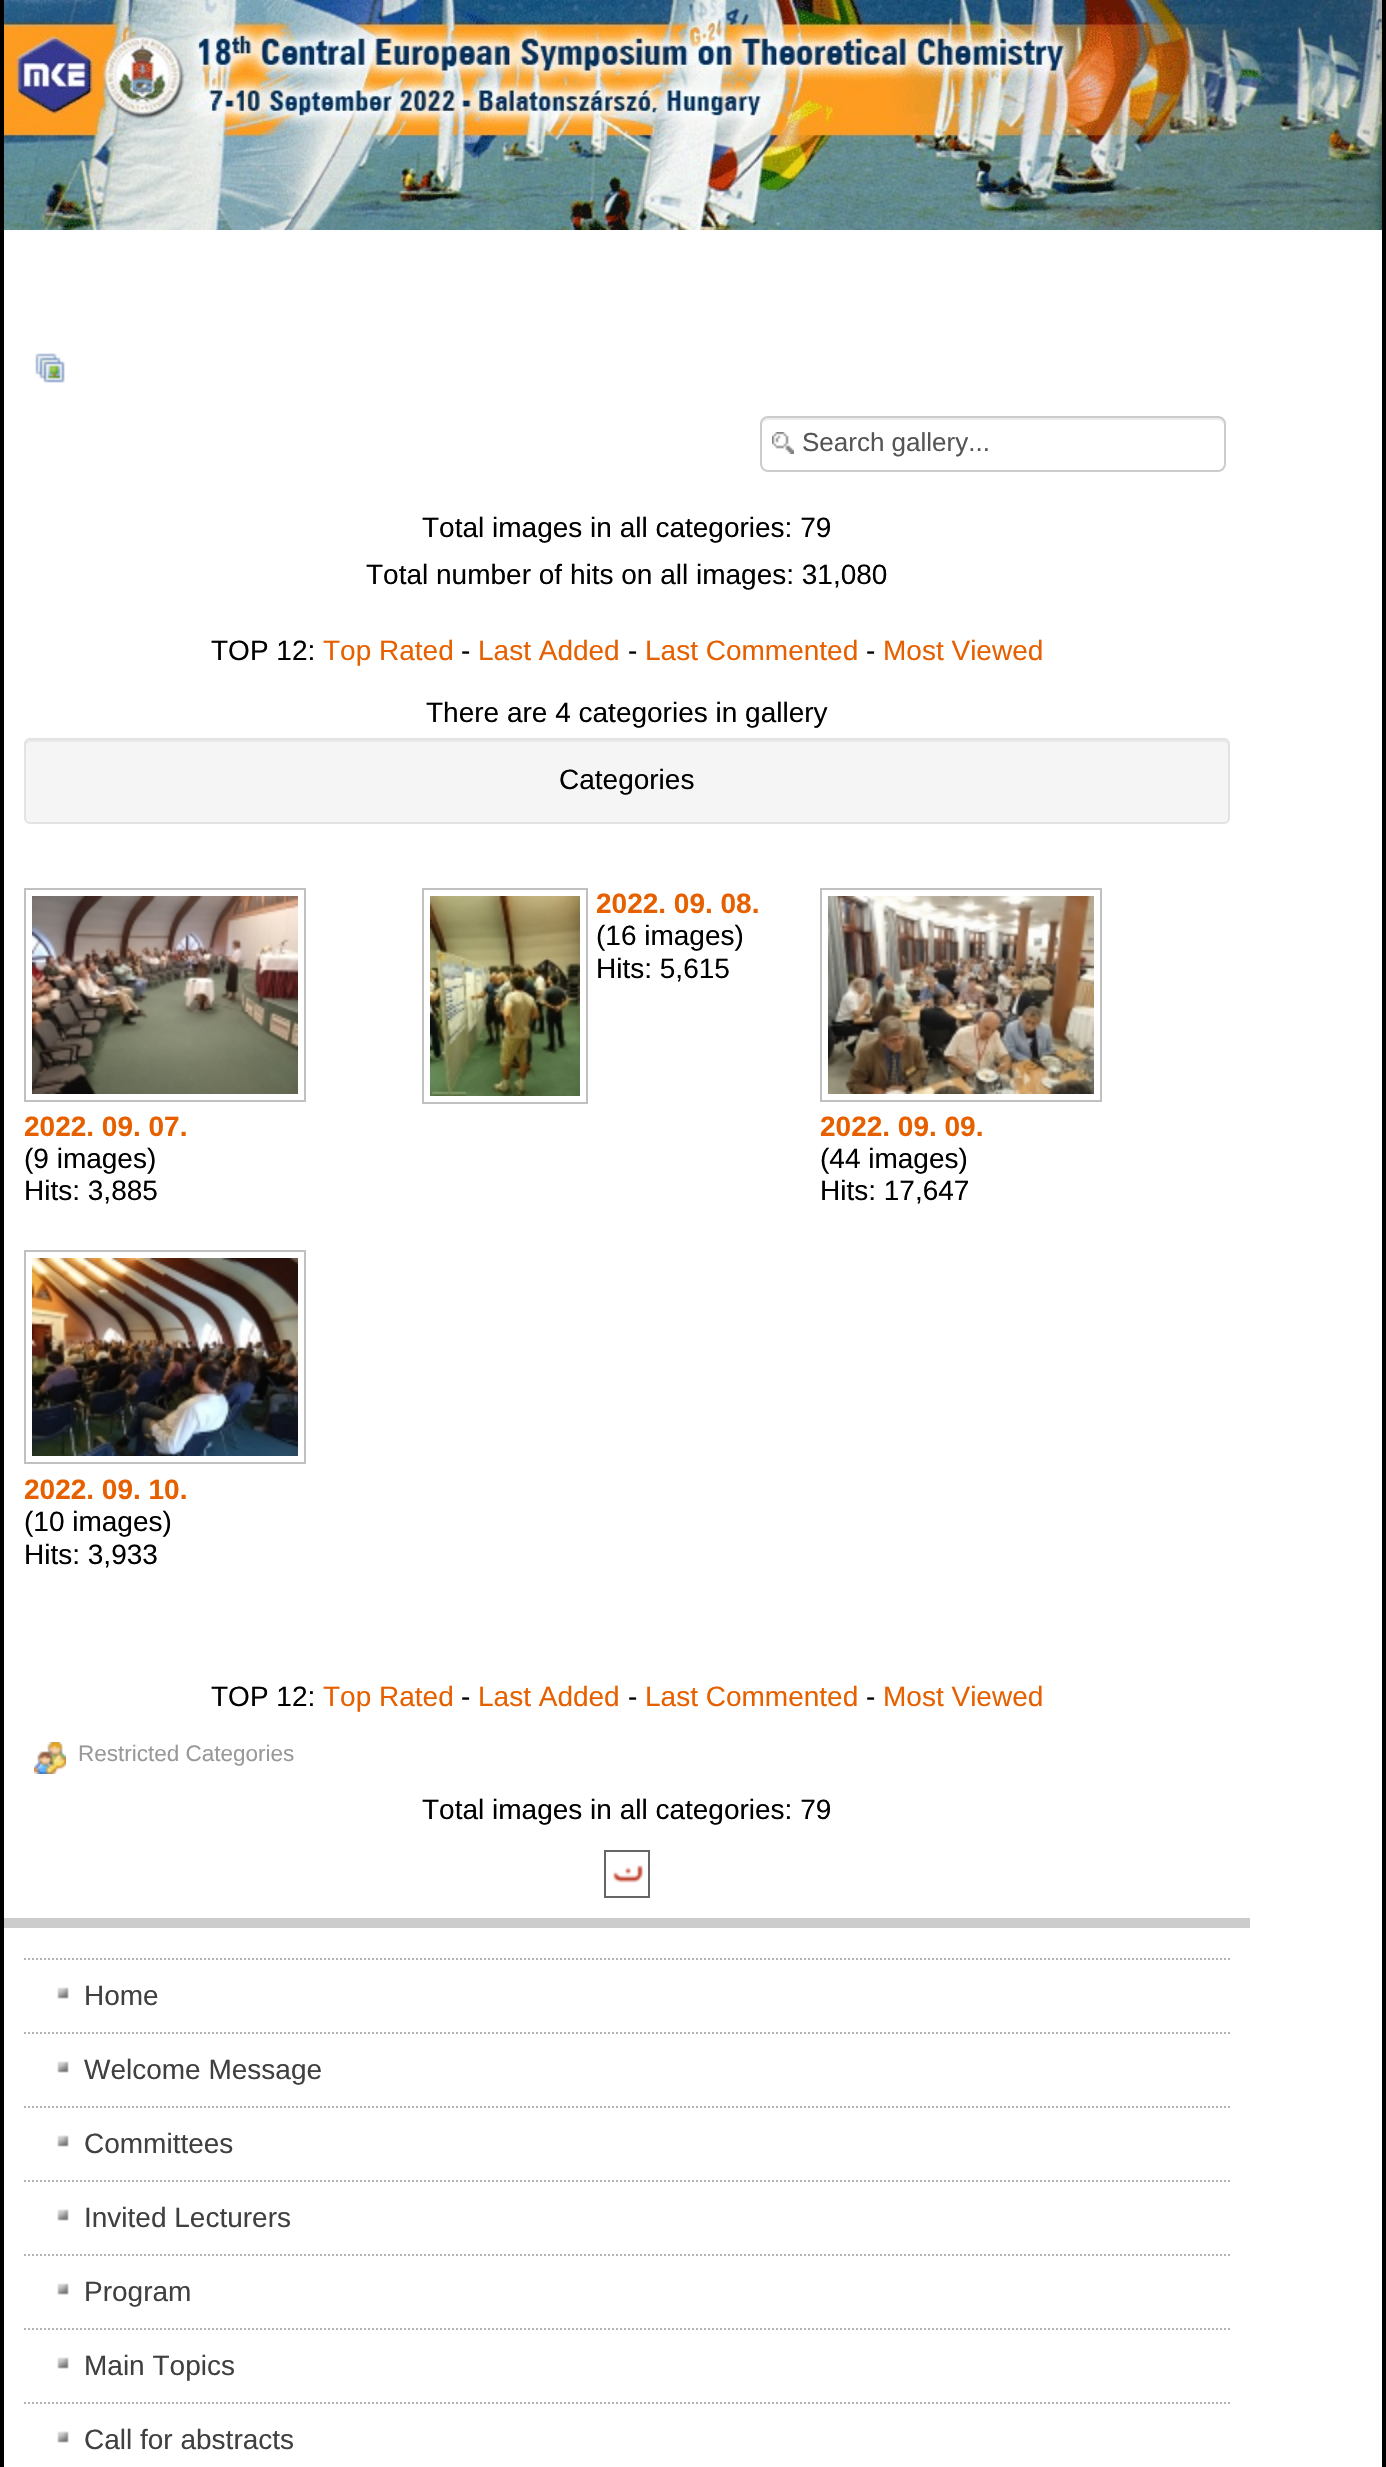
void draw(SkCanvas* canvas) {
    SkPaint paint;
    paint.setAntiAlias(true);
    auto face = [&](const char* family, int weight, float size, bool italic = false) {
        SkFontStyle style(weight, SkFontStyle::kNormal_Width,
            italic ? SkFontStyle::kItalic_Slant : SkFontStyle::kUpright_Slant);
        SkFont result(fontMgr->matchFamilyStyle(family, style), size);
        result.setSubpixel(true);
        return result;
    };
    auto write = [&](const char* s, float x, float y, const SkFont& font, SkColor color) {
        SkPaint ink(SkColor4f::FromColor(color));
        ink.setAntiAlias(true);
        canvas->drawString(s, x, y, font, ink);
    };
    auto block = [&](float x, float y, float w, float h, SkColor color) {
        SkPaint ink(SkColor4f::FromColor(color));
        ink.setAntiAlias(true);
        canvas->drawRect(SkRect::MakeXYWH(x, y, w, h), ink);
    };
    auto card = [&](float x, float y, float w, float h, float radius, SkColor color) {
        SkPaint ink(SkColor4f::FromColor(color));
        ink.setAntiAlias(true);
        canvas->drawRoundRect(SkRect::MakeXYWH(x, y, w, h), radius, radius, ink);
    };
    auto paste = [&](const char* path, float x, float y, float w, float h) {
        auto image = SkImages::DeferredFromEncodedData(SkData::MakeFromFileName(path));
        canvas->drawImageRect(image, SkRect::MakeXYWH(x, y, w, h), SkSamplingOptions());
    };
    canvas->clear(SK_ColorBLACK);
    block(4, 230, 1378, 2237, SK_ColorWHITE);
    paste("pic1.png", 4, 0, 1378, 230);
    block(4, 1918, 1246, 10, SkColorSetRGB(204, 204, 204));
    paste("pic2.png", 35, 353, 30, 30);
    paste("pic3.png", 772, 432, 22, 22);
    paint.setColor(SkColorSetRGB(236, 236, 236));
    canvas->drawPath(SkPathBuilder().moveTo(768, 420).lineTo(1218, 420).cubicTo(1221, 420, 1224, 423, 1224, 426).cubicTo(1224, 422, 1223, 418, 1218, 418).lineTo(768, 418).cubicTo(763, 418, 762, 422, 762, 426).cubicTo(762, 423, 765, 420, 768, 420).close().detach(), paint);
    paint.setStyle(SkPaint::kStroke_Style);
    paint.setStrokeWidth(2);
    paint.setColor(SkColorSetRGB(204, 204, 204));
    canvas->drawRoundRect(SkRect::MakeXYWH(761, 417, 464, 54), 7, 7, paint);
    auto kFont1 = face("Liberation Sans", 400, 26);
    write("Search gallery...", 802, 451, kFont1, SkColorSetRGB(85, 85, 85));
    auto kFont2 = face("Liberation Sans", 400, 28);
    write("Total images in all categories: 79", 422, 537, kFont2, SK_ColorBLACK);
    write("Total number of hits on all images: 31,080", 366, 584, kFont2, SK_ColorBLACK);
    write("TOP 12:", 211, 660, kFont2, SK_ColorBLACK);
    write("Top Rated", 323, 660, kFont2, SkColorSetRGB(230, 96, 0));
    write("-", 461, 660, kFont2, SK_ColorBLACK);
    write("Last Added", 478, 660, kFont2, SkColorSetRGB(230, 96, 0));
    write("-", 628, 660, kFont2, SK_ColorBLACK);
    write("Last Commented", 645, 660, kFont2, SkColorSetRGB(230, 96, 0));
    write("-", 866, 660, kFont2, SK_ColorBLACK);
    write("Most Viewed", 883, 660, kFont2, SkColorSetRGB(230, 96, 0));
    write("There are 4 categories in gallery", 426, 722, kFont2, SK_ColorBLACK);
    card(24, 738, 1206, 86, 6, SkColorSetRGB(245, 245, 245));
    paint.setStyle(SkPaint::kFill_Style);
    paint.setColor(SkColorSetRGB(233, 233, 233));
    canvas->drawPath(SkPathBuilder().moveTo(30, 742).lineTo(1224, 742).cubicTo(1226, 742, 1228, 744, 1228, 746).lineTo(1228, 744).cubicTo(1228, 742, 1226, 740, 1224, 740).lineTo(30, 740).cubicTo(28, 740, 26, 742, 26, 744).lineTo(26, 746).cubicTo(26, 744, 28, 742, 30, 742).close().detach(), paint);
    paint.setStyle(SkPaint::kStroke_Style);
    paint.setColor(SkColorSetRGB(227, 227, 227));
    canvas->drawRoundRect(SkRect::MakeXYWH(25, 739, 1204, 84), 5, 5, paint);
    write("Categories", 559, 789, kFont2, SK_ColorBLACK);
    paint.setColor(SkColorSetRGB(192, 192, 192));
    canvas->drawRect(SkRect::MakeXYWH(423, 889, 164, 214), paint);
    paste("pic4.png", 430, 896, 150, 200);
    auto kFont3 = face("Liberation Sans", 700, 28);
    write("2022. 09. 08.", 596, 913, kFont3, SkColorSetRGB(230, 96, 0));
    write("(16 images)", 596, 945, kFont2, SK_ColorBLACK);
    write("Hits: 5,615", 596, 978, kFont2, SK_ColorBLACK);
    canvas->drawRect(SkRect::MakeXYWH(25, 889, 280, 212), paint);
    paste("pic5.png", 32, 896, 266, 198);
    write("2022. 09. 07.", 24, 1136, kFont3, SkColorSetRGB(230, 96, 0));
    write("(9 images)", 24, 1168, kFont2, SK_ColorBLACK);
    write("Hits: 3,885", 24, 1200, kFont2, SK_ColorBLACK);
    canvas->drawRect(SkRect::MakeXYWH(821, 889, 280, 212), paint);
    paste("pic6.png", 828, 896, 266, 198);
    write("2022. 09. 09.", 820, 1136, kFont3, SkColorSetRGB(230, 96, 0));
    write("(44 images)", 820, 1168, kFont2, SK_ColorBLACK);
    write("Hits: 17,647", 820, 1200, kFont2, SK_ColorBLACK);
    canvas->drawRect(SkRect::MakeXYWH(25, 1251, 280, 212), paint);
    paste("pic7.png", 32, 1258, 266, 198);
    write("2022. 09. 10.", 24, 1499, kFont3, SkColorSetRGB(230, 96, 0));
    write("(10 images)", 24, 1531, kFont2, SK_ColorBLACK);
    write("Hits: 3,933", 24, 1564, kFont2, SK_ColorBLACK);
    write("TOP 12:", 211, 1706, kFont2, SK_ColorBLACK);
    write("Top Rated", 323, 1706, kFont2, SkColorSetRGB(230, 96, 0));
    write("-", 461, 1706, kFont2, SK_ColorBLACK);
    write("Last Added", 478, 1706, kFont2, SkColorSetRGB(230, 96, 0));
    write("-", 628, 1706, kFont2, SK_ColorBLACK);
    write("Last Commented", 645, 1706, kFont2, SkColorSetRGB(230, 96, 0));
    write("-", 866, 1706, kFont2, SK_ColorBLACK);
    write("Most Viewed", 883, 1706, kFont2, SkColorSetRGB(230, 96, 0));
    paste("pic8.png", 34, 1742, 32, 32);
    auto kFont4 = face("Liberation Sans", 400, 22.5f);
    write("Restricted Categories", 78, 1761, kFont4, SkColorSetRGB(153, 153, 153));
    write("Total images in all categories: 79", 422, 1819, kFont2, SK_ColorBLACK);
    paint.setColor(SkColorSetRGB(102, 102, 102));
    canvas->drawRect(SkRect::MakeXYWH(605, 1851, 44, 46), paint);
    paste("pic9.png", 612, 1865, 32, 18);
    paint.setColor(SkColorSetRGB(179, 179, 179));
    paint.setPathEffect(SkDashPathEffect::Make({{2, 2}}, 0));
    canvas->drawPath(SkPathBuilder().moveTo(24, 1959).lineTo(1230, 1959).detach(), paint);
    paint.setPathEffect(nullptr);
    paint.setPathEffect(SkDashPathEffect::Make({{2, 2}}, 0));
    canvas->drawPath(SkPathBuilder().moveTo(24, 2033).lineTo(1230, 2033).detach(), paint);
    paint.setPathEffect(nullptr);
    paste("pic10.png", 57, 1987, 12, 12);
    write("Home", 84, 2005, kFont2, SkColorSetRGB(64, 64, 64));
    paint.setPathEffect(SkDashPathEffect::Make({{2, 2}}, 0));
    canvas->drawPath(SkPathBuilder().moveTo(24, 2107).lineTo(1230, 2107).detach(), paint);
    paint.setPathEffect(nullptr);
    paste("pic10.png", 57, 2061, 12, 12);
    write("Welcome Message", 84, 2079, kFont2, SkColorSetRGB(64, 64, 64));
    paint.setPathEffect(SkDashPathEffect::Make({{2, 2}}, 0));
    canvas->drawPath(SkPathBuilder().moveTo(24, 2181).lineTo(1230, 2181).detach(), paint);
    paint.setPathEffect(nullptr);
    paste("pic10.png", 57, 2135, 12, 12);
    write("Committees", 84, 2153, kFont2, SkColorSetRGB(64, 64, 64));
    paint.setPathEffect(SkDashPathEffect::Make({{2, 2}}, 0));
    canvas->drawPath(SkPathBuilder().moveTo(24, 2255).lineTo(1230, 2255).detach(), paint);
    paint.setPathEffect(nullptr);
    paste("pic10.png", 57, 2209, 12, 12);
    write("Invited Lecturers", 84, 2227, kFont2, SkColorSetRGB(64, 64, 64));
    paint.setPathEffect(SkDashPathEffect::Make({{2, 2}}, 0));
    canvas->drawPath(SkPathBuilder().moveTo(24, 2329).lineTo(1230, 2329).detach(), paint);
    paint.setPathEffect(nullptr);
    paste("pic10.png", 57, 2283, 12, 12);
    write("Program", 84, 2301, kFont2, SkColorSetRGB(64, 64, 64));
    paint.setPathEffect(SkDashPathEffect::Make({{2, 2}}, 0));
    canvas->drawPath(SkPathBuilder().moveTo(24, 2403).lineTo(1230, 2403).detach(), paint);
    paint.setPathEffect(nullptr);
    paste("pic10.png", 57, 2357, 12, 12);
    write("Main Topics", 84, 2375, kFont2, SkColorSetRGB(64, 64, 64));
    paste("pic10.png", 57, 2431, 12, 12);
    write("Call for abstracts", 84, 2449, kFont2, SkColorSetRGB(64, 64, 64));
}
